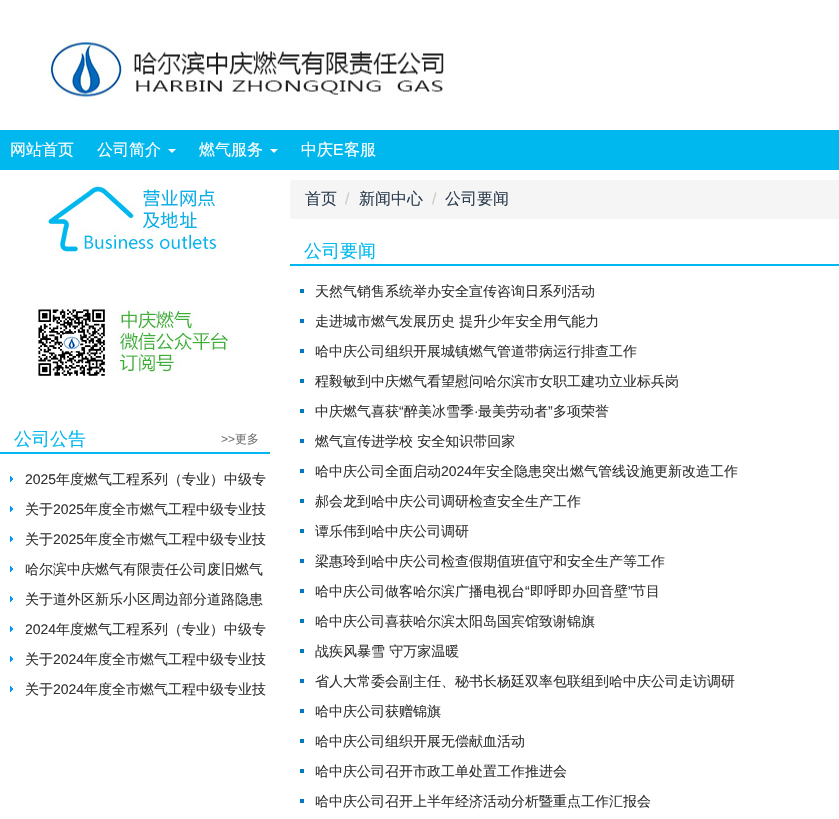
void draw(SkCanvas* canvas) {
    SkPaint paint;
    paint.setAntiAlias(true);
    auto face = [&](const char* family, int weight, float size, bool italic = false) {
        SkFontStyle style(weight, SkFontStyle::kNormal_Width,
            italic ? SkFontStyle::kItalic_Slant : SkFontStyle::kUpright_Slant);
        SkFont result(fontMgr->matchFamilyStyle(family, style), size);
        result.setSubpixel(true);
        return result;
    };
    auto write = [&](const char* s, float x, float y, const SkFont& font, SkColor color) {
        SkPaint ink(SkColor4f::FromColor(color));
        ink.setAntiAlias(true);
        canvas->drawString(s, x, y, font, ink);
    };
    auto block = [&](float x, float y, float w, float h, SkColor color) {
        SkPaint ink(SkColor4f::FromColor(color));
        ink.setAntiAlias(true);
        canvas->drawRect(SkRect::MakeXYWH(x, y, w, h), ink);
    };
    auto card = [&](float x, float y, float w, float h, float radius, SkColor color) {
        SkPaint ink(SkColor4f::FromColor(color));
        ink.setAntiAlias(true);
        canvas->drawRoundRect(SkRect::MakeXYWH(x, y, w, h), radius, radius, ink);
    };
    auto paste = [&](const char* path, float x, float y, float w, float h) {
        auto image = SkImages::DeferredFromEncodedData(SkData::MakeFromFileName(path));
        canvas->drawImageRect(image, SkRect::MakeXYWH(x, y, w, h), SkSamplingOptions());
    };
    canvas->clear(SK_ColorWHITE);
    paste("pic1.png", 48, 39, 396, 61);
    block(0, 130, 839, 40, SkColorSetRGB(0, 184, 238));
    auto kFont1 = face("WenQuanYi Zen Hei", 500, 16);
    write("网站首页", 10, 155, kFont1, SK_ColorWHITE);
    write("公司简介", 97, 155, kFont1, SK_ColorWHITE);
    paint.setColor(SK_ColorWHITE);
    canvas->drawPath(SkPathBuilder().moveTo(168, 149).lineTo(176, 149).lineTo(172, 153).close().detach(), paint);
    write("燃气服务", 199, 155, kFont1, SK_ColorWHITE);
    canvas->drawPath(SkPathBuilder().moveTo(270, 149).lineTo(278, 149).lineTo(274, 153).close().detach(), paint);
    write("中庆", 301, 155, kFont1, SK_ColorWHITE);
    auto kFont2 = face("Liberation Sans", 400, 16);
    write("E", 333, 155, kFont2, SK_ColorWHITE);
    write("客服", 344, 155, kFont1, SK_ColorWHITE);
    paste("pic2.png", 47, 180, 176, 72);
    paste("pic3.png", 36, 302, 192, 78);
    block(0, 452, 270, 2, SkColorSetRGB(0, 184, 238));
    auto kFont3 = face("WenQuanYi Zen Hei", 500, 18);
    write("公司公告", 14, 445, kFont3, SkColorSetRGB(0, 184, 238));
    auto kFont4 = face("Liberation Sans", 400, 12);
    write(">>", 221, 443, kFont4, SkColorSetRGB(113, 113, 113));
    auto kFont5 = face("WenQuanYi Zen Hei", 500, 12);
    write("更多", 235, 443, kFont5, SkColorSetRGB(113, 113, 113));
    paste("pic4.png", 10, 476, 3, 6);
    auto kFont6 = face("Liberation Sans", 400, 14);
    write("2025", 25, 484, kFont6, SkColorSetRGB(51, 51, 51));
    auto kFont7 = face("WenQuanYi Zen Hei", 500, 14);
    write("年度燃气工程系列（专业）中级专", 56, 484, kFont7, SkColorSetRGB(51, 51, 51));
    paste("pic4.png", 10, 506, 3, 6);
    write("关于", 25, 514, kFont7, SkColorSetRGB(51, 51, 51));
    write("2025", 53, 514, kFont6, SkColorSetRGB(51, 51, 51));
    write("年度全市燃气工程中级专业技", 84, 514, kFont7, SkColorSetRGB(51, 51, 51));
    paste("pic4.png", 10, 536, 3, 6);
    write("关于", 25, 544, kFont7, SkColorSetRGB(51, 51, 51));
    write("2025", 53, 544, kFont6, SkColorSetRGB(51, 51, 51));
    write("年度全市燃气工程中级专业技", 84, 544, kFont7, SkColorSetRGB(51, 51, 51));
    paste("pic4.png", 10, 566, 3, 6);
    write("哈尔滨中庆燃气有限责任公司废旧燃气", 25, 574, kFont7, SkColorSetRGB(51, 51, 51));
    paste("pic4.png", 10, 596, 3, 6);
    write("关于道外区新乐小区周边部分道路隐患", 25, 604, kFont7, SkColorSetRGB(51, 51, 51));
    paste("pic4.png", 10, 626, 3, 6);
    write("2024", 25, 634, kFont6, SkColorSetRGB(51, 51, 51));
    write("年度燃气工程系列（专业）中级专", 56, 634, kFont7, SkColorSetRGB(51, 51, 51));
    paste("pic4.png", 10, 656, 3, 6);
    write("关于", 25, 664, kFont7, SkColorSetRGB(51, 51, 51));
    write("2024", 53, 664, kFont6, SkColorSetRGB(51, 51, 51));
    write("年度全市燃气工程中级专业技", 84, 664, kFont7, SkColorSetRGB(51, 51, 51));
    paste("pic4.png", 10, 686, 3, 6);
    write("关于", 25, 694, kFont7, SkColorSetRGB(51, 51, 51));
    write("2024", 53, 694, kFont6, SkColorSetRGB(51, 51, 51));
    write("年度全市燃气工程中级专业技", 84, 694, kFont7, SkColorSetRGB(51, 51, 51));
    card(290, 180, 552, 39, 3, SkColorSetRGB(245, 245, 245));
    write("首页", 305, 204, kFont1, SkColorSetRGB(44, 62, 80));
    write("/", 345, 204, kFont2, SkColorSetRGB(204, 204, 204));
    write("新闻中心", 359, 204, kFont1, SkColorSetRGB(44, 62, 80));
    write("/", 432, 204, kFont2, SkColorSetRGB(204, 204, 204));
    write("公司要闻", 445, 204, kFont1, SkColorSetRGB(44, 62, 80));
    block(290, 264, 549, 2, SkColorSetRGB(0, 184, 238));
    write("公司要闻", 304, 257, kFont3, SkColorSetRGB(0, 184, 238));
    block(300, 289, 4, 4, SkColorSetRGB(1, 121, 199));
    write("天然气销售系统举办安全宣传咨询日系列活动", 315, 296, kFont7, SkColorSetRGB(51, 51, 51));
    block(300, 319, 4, 4, SkColorSetRGB(1, 121, 199));
    write("走进城市燃气发展历史 提升少年安全用气能力", 315, 326, kFont7, SkColorSetRGB(51, 51, 51));
    block(300, 349, 4, 4, SkColorSetRGB(1, 121, 199));
    write("哈中庆公司组织开展城镇燃气管道带病运行排查工作", 315, 356, kFont7, SkColorSetRGB(51, 51, 51));
    block(300, 379, 4, 4, SkColorSetRGB(1, 121, 199));
    write("程毅敏到中庆燃气看望慰问哈尔滨市女职工建功立业标兵岗", 315, 386, kFont7, SkColorSetRGB(51, 51, 51));
    block(300, 409, 4, 4, SkColorSetRGB(1, 121, 199));
    write("中庆燃气喜获", 315, 416, kFont7, SkColorSetRGB(51, 51, 51));
    write("“", 399, 416, kFont6, SkColorSetRGB(51, 51, 51));
    write("醉美冰雪季", 404, 416, kFont7, SkColorSetRGB(51, 51, 51));
    write("最美劳动者", 478, 416, kFont7, SkColorSetRGB(51, 51, 51));
    write("”", 548, 416, kFont6, SkColorSetRGB(51, 51, 51));
    write("多项荣誉", 553, 416, kFont7, SkColorSetRGB(51, 51, 51));
    write("·", 474, 416, kFont6, SkColorSetRGB(51, 51, 51));
    block(300, 439, 4, 4, SkColorSetRGB(1, 121, 199));
    write("燃气宣传进学校 安全知识带回家", 315, 446, kFont7, SkColorSetRGB(51, 51, 51));
    block(300, 469, 4, 4, SkColorSetRGB(1, 121, 199));
    write("哈中庆公司全面启动", 315, 476, kFont7, SkColorSetRGB(51, 51, 51));
    write("2024", 441, 476, kFont6, SkColorSetRGB(51, 51, 51));
    write("年安全隐患突出燃气管线设施更新改造工作", 472, 476, kFont7, SkColorSetRGB(51, 51, 51));
    block(300, 499, 4, 4, SkColorSetRGB(1, 121, 199));
    write("郝会龙到哈中庆公司调研检查安全生产工作", 315, 506, kFont7, SkColorSetRGB(51, 51, 51));
    block(300, 529, 4, 4, SkColorSetRGB(1, 121, 199));
    write("谭乐伟到哈中庆公司调研", 315, 536, kFont7, SkColorSetRGB(51, 51, 51));
    block(300, 559, 4, 4, SkColorSetRGB(1, 121, 199));
    write("梁惠玲到哈中庆公司检查假期值班值守和安全生产等工作", 315, 566, kFont7, SkColorSetRGB(51, 51, 51));
    block(300, 589, 4, 4, SkColorSetRGB(1, 121, 199));
    write("哈中庆公司做客哈尔滨广播电视台", 315, 596, kFont7, SkColorSetRGB(51, 51, 51));
    write("“", 525, 596, kFont6, SkColorSetRGB(51, 51, 51));
    write("即呼即办回音壁", 530, 596, kFont7, SkColorSetRGB(51, 51, 51));
    write("”", 628, 596, kFont6, SkColorSetRGB(51, 51, 51));
    write("节目", 632, 596, kFont7, SkColorSetRGB(51, 51, 51));
    block(300, 619, 4, 4, SkColorSetRGB(1, 121, 199));
    write("哈中庆公司喜获哈尔滨太阳岛国宾馆致谢锦旗", 315, 626, kFont7, SkColorSetRGB(51, 51, 51));
    block(300, 649, 4, 4, SkColorSetRGB(1, 121, 199));
    write("战疾风暴雪 守万家温暖", 315, 656, kFont7, SkColorSetRGB(51, 51, 51));
    block(300, 679, 4, 4, SkColorSetRGB(1, 121, 199));
    write("省人大常委会副主任、秘书长杨廷双率包联组到哈中庆公司走访调研", 315, 686, kFont7, SkColorSetRGB(51, 51, 51));
    block(300, 709, 4, 4, SkColorSetRGB(1, 121, 199));
    write("哈中庆公司获赠锦旗", 315, 716, kFont7, SkColorSetRGB(51, 51, 51));
    block(300, 739, 4, 4, SkColorSetRGB(1, 121, 199));
    write("哈中庆公司组织开展无偿献血活动", 315, 746, kFont7, SkColorSetRGB(51, 51, 51));
    block(300, 769, 4, 4, SkColorSetRGB(1, 121, 199));
    write("哈中庆公司召开市政工单处置工作推进会", 315, 776, kFont7, SkColorSetRGB(51, 51, 51));
    block(300, 799, 4, 4, SkColorSetRGB(1, 121, 199));
    write("哈中庆公司召开上半年经济活动分析暨重点工作汇报会", 315, 806, kFont7, SkColorSetRGB(51, 51, 51));
}
